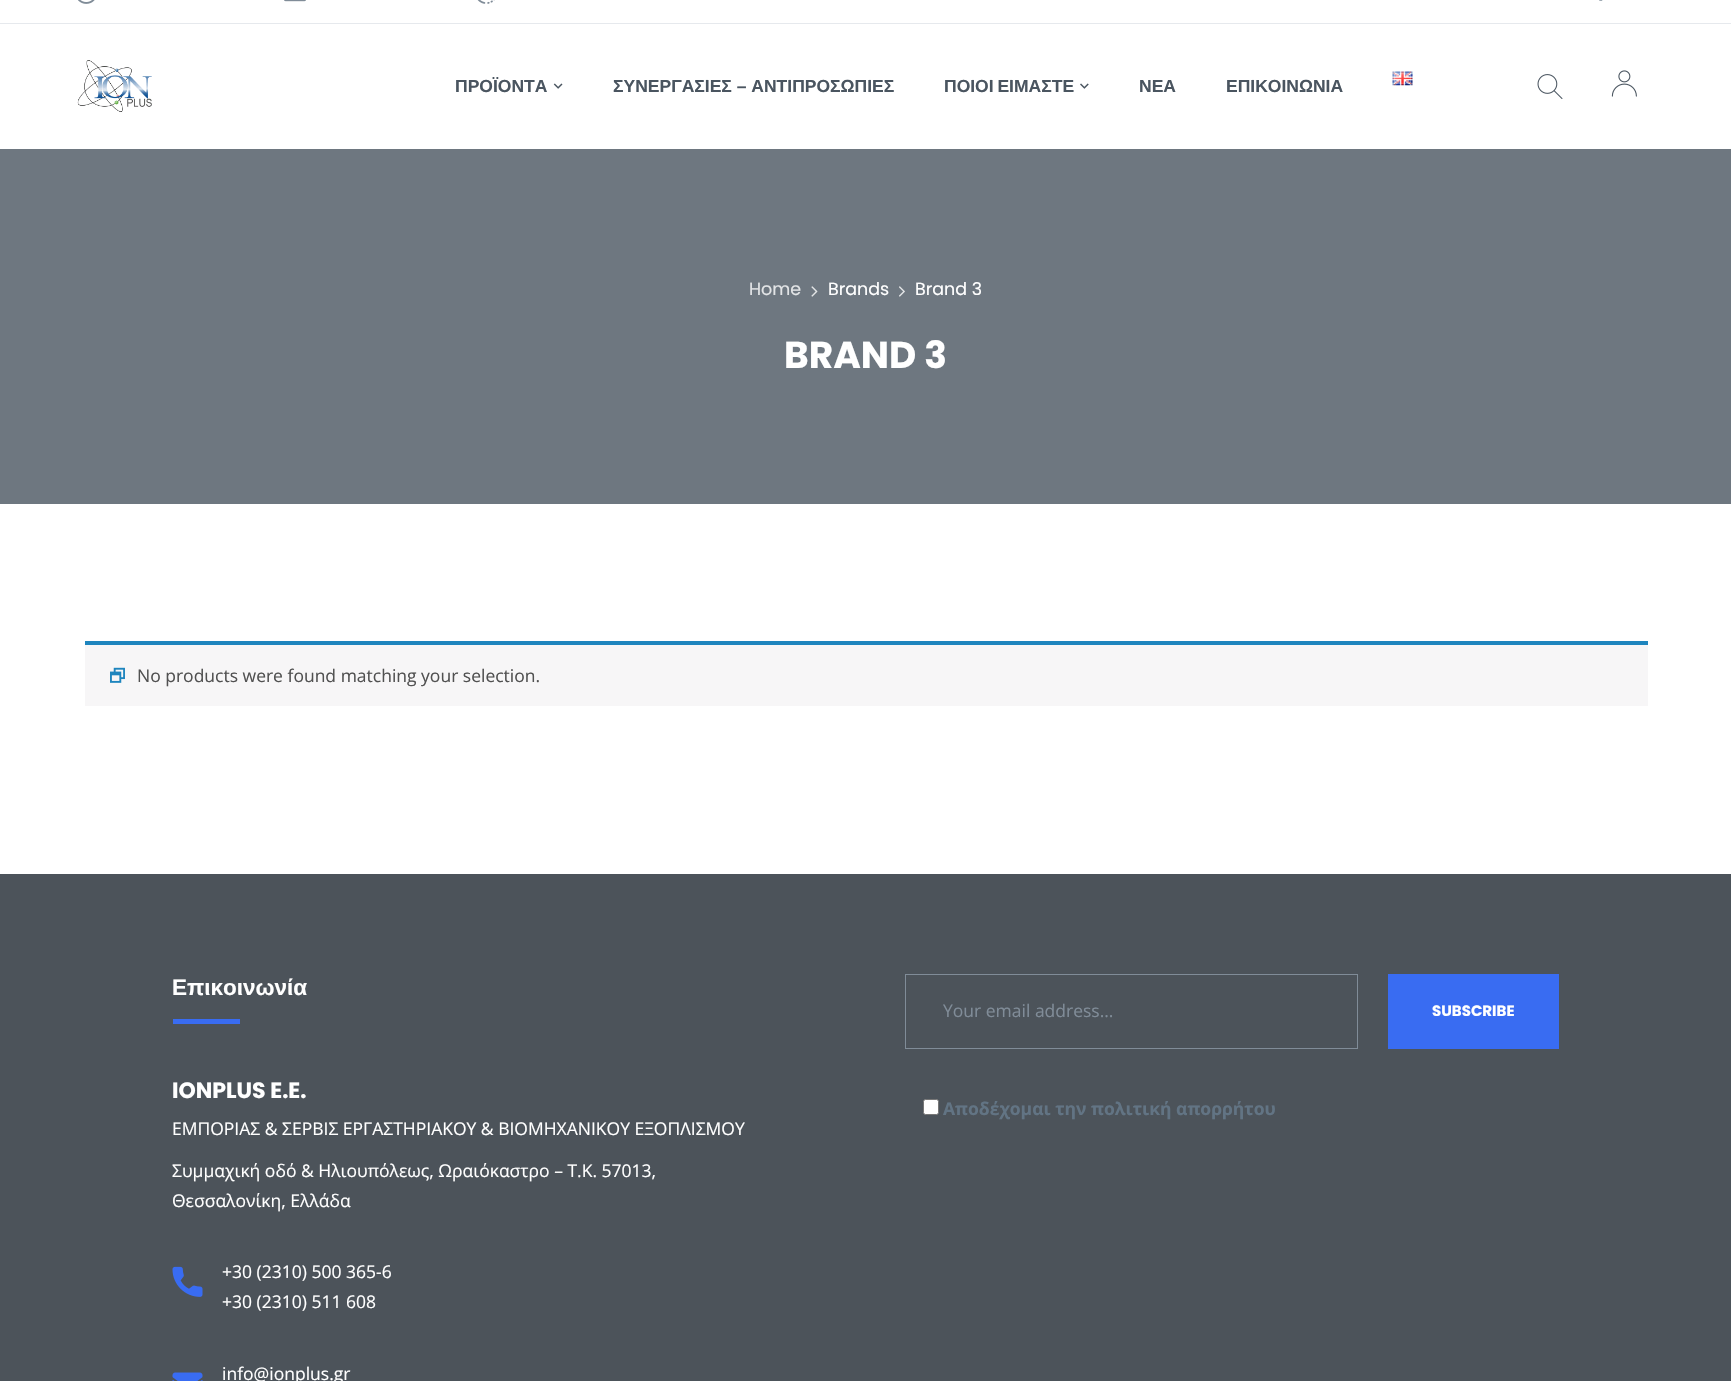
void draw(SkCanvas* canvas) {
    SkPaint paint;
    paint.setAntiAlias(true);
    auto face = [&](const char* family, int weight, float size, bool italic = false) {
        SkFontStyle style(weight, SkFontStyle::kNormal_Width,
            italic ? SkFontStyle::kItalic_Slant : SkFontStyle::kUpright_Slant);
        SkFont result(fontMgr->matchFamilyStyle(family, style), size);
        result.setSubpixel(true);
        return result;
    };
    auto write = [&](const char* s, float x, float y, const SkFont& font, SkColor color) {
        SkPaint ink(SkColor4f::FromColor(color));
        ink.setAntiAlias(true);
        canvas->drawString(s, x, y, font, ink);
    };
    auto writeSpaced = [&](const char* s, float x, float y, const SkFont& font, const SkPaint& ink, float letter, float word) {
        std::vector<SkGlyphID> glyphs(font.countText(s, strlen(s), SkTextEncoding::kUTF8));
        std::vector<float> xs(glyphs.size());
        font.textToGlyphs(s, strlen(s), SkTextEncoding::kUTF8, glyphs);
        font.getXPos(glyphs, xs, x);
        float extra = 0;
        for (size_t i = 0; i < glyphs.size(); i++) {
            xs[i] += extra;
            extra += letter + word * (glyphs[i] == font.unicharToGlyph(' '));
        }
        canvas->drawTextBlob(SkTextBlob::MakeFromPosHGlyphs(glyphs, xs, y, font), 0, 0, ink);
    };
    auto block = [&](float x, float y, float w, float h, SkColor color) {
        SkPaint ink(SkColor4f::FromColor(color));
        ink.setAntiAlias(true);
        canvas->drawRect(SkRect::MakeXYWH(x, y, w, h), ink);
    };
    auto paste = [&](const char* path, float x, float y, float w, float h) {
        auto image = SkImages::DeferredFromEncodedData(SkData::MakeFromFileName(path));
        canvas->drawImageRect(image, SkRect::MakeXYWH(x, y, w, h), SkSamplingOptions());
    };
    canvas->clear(SK_ColorWHITE);
    block(0, 23, 1731, 1, SkColorSetRGB(230, 233, 237));
    paste("pic1.png", 78, 0, 17, 4);
    paste("pic2.png", 284, 0, 22, 2);
    paste("pic3.png", 477, 0, 18, 4);
    paste("pic4.png", 1599, 0, 4, 1);
    paste("pic5.png", 77, 60, 75, 52);
    auto kFont1 = face("Liberation Sans", 700, 17.5f);
    write("ΠΡΟΪΟΝΤΑ", 455, 92, kFont1, SkColorSetRGB(74, 85, 96));
    paste("pic6.png", 553, 83, 10, 6);
    write("ΣΥΝΕΡΓΑΣΙΕΣ – ΑΝΤΙΠΡΟΣΩΠΙΕΣ", 613, 92, kFont1, SkColorSetRGB(74, 85, 96));
    paint.setColor(SkColorSetRGB(74, 85, 96));
    writeSpaced("ΠΟΙΟΙ ΕΙΜΑΣΤΕ", 944, 92, kFont1, paint, 0, -1);
    paste("pic7.png", 1080, 83, 9, 6);
    write("ΝΕΑ", 1139, 92, kFont1, SkColorSetRGB(74, 85, 96));
    write("ΕΠΙΚΟΙΝΩΝΙΑ", 1226, 92, kFont1, SkColorSetRGB(74, 85, 96));
    paste("pic8.png", 1392, 71, 21, 15);
    paste("pic9.png", 1537, 74, 26, 25);
    paste("pic10.png", 1611, 70, 26, 27);
    block(0, 149, 1731, 355, SkColorSetRGB(110, 119, 128));
    auto kFont2 = face("Poppins", 400, 17.5f);
    write("Home", 749, 295, kFont2, SkColorSetRGB(226, 228, 230));
    paste("pic11.png", 811, 286, 7, 11);
    write("Brands", 828, 295, kFont2, SK_ColorWHITE);
    paste("pic12.png", 899, 286, 6, 11);
    write("Brand 3", 915, 295, kFont2, SK_ColorWHITE);
    auto kFont3 = face("Poppins", 700, 37.5f);
    write("BRAND 3", 784, 368, kFont3, SK_ColorWHITE);
    block(85, 645, 1563, 61, SkColorSetRGB(247, 246, 247));
    block(85, 641, 1563, 4, SkColorSetRGB(30, 133, 190));
    paste("pic13.png", 110, 667, 15, 16);
    auto kFont4 = face("Open Sans", 400, 17.5f);
    write("No products were found matching your selection.", 137, 682, kFont4, SkColorSetRGB(81, 81, 81));
    block(0, 874, 1731, 507, SkColorSetRGB(76, 83, 90));
    auto kFont5 = face("Liberation Sans", 700, 22.5f);
    write("Επικοινωνία", 172, 995, kFont5, SK_ColorWHITE);
    block(173, 1019, 67, 5, SkColorSetRGB(57, 108, 242));
    auto kFont6 = face("Poppins", 700, 22);
    write("IONPLUS E.E.", 172, 1098, kFont6, SK_ColorWHITE);
    write("ΕΜΠΟΡΙΑΣ & ΣΕΡΒΙΣ ΕΡΓΑΣΤΗΡΙΑΚΟΥ & ΒΙΟΜΗΧΑΝΙΚΟΥ ΕΞΟΠΛΙΣΜΟΥ", 172, 1135, kFont4, SK_ColorWHITE);
    write("Συμμαχική οδό & Ηλιουπόλεως, Ωραιόκαστρο – Τ.Κ. 57013,", 172, 1177, kFont4, SK_ColorWHITE);
    write("Θεσσαλονίκη, Ελλάδα", 172, 1207, kFont4, SK_ColorWHITE);
    paste("pic14.png", 172, 1266, 31, 31);
    write("+30 (2310) 500 365-6", 222, 1278, kFont4, SK_ColorWHITE);
    write("+30 (2310) 511 608", 222, 1308, kFont4, SK_ColorWHITE);
    paste("pic15.png", 172, 1372, 31, 9);
    write("info@ionplus.gr", 222, 1380, kFont4, SK_ColorWHITE);
    paint.setStyle(SkPaint::kStroke_Style);
    paint.setStrokeWidth(1);
    paint.setColor(SkColorSetRGB(128, 140, 152));
    canvas->drawRect(SkRect::MakeXYWH(905.5f, 974.5f, 452, 74), paint);
    write("Your email address...", 943, 1017, kFont4, SkColorSetRGB(128, 140, 152));
    block(1388, 974, 171, 75, SkColorSetRGB(57, 108, 242));
    auto kFont7 = face("Poppins", 700, 15);
    write("SUBSCRIBE", 1432, 1016, kFont7, SK_ColorWHITE);
    paint.setStyle(SkPaint::kFill_Style);
    paint.setColor(SK_ColorWHITE);
    canvas->drawRoundRect(SkRect::MakeXYWH(923.5f, 1099.5f, 15, 15), 2, 2, paint);
    paint.setStyle(SkPaint::kStroke_Style);
    paint.setColor(SkColorSetRGB(118, 118, 118));
    canvas->drawRoundRect(SkRect::MakeXYWH(923.5f, 1099.5f, 15, 15), 2, 2, paint);
    auto kFont8 = face("Open Sans", 700, 17.5f);
    write("Αποδέχομαι την πολιτική απορρήτου", 943, 1115, kFont8, SkColorSetRGB(98, 116, 132));
}
